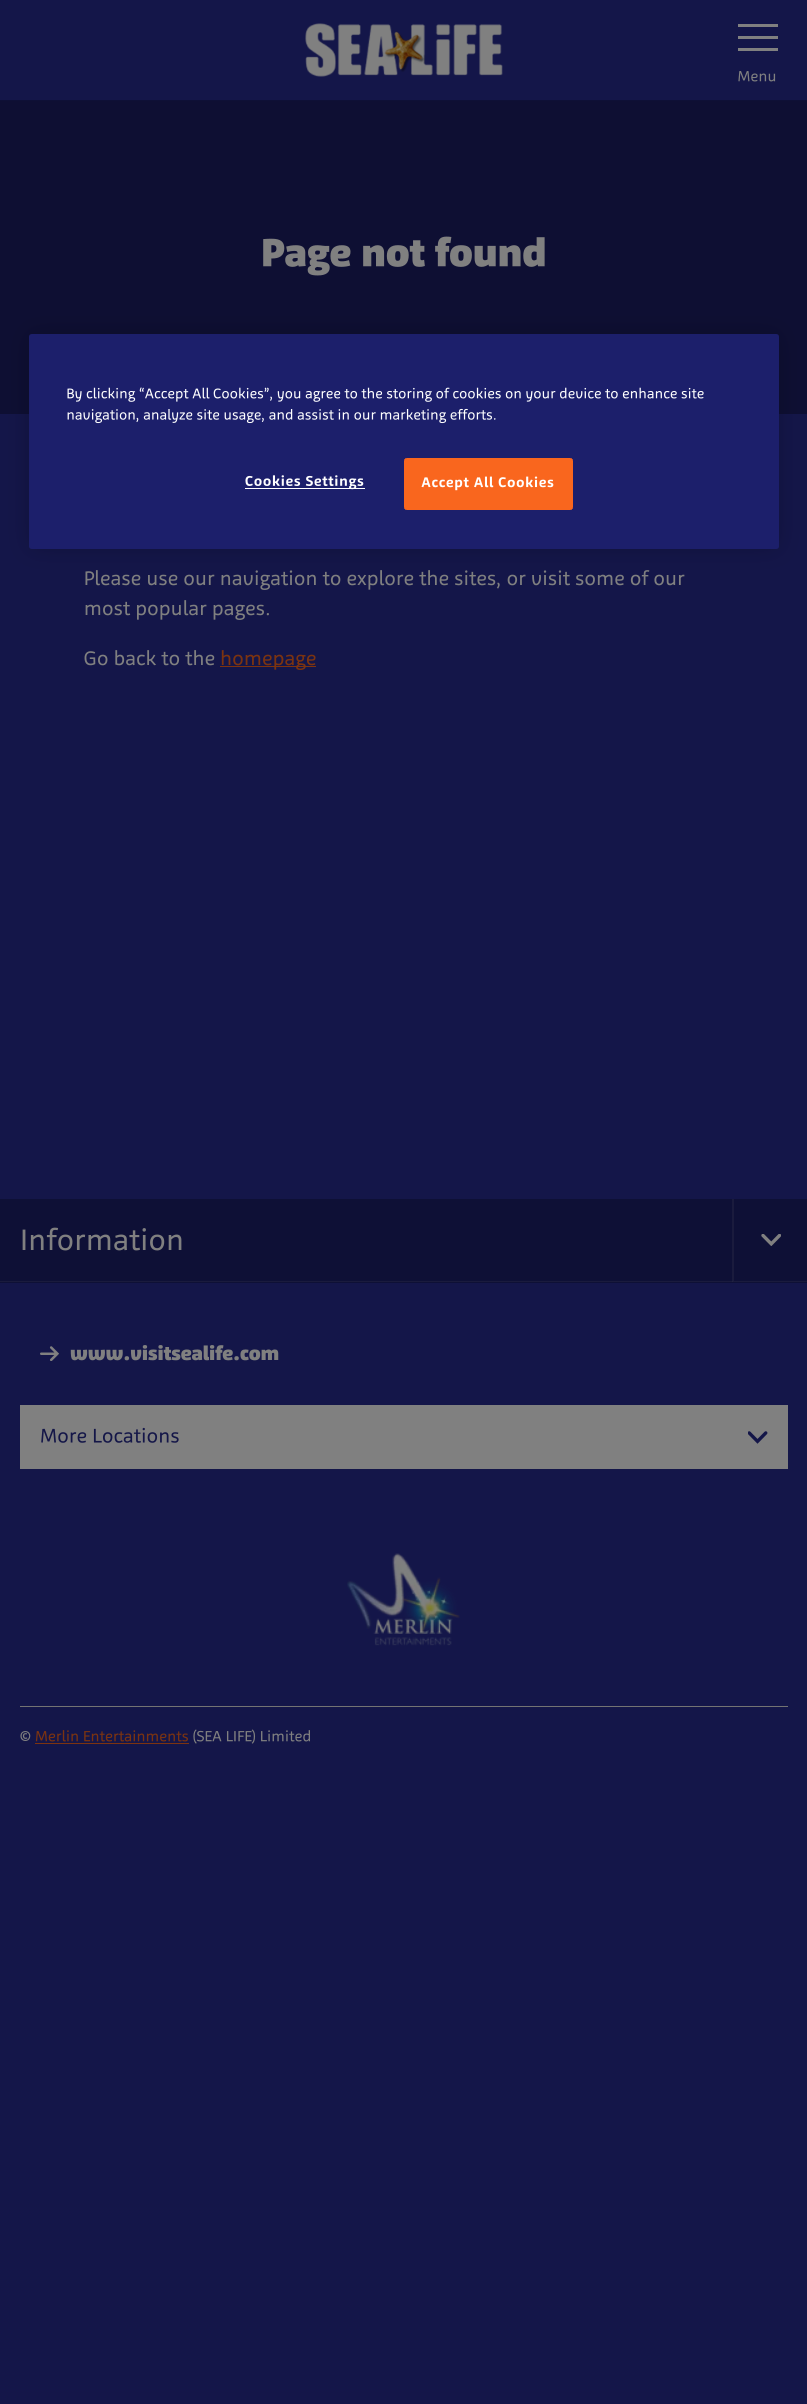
void draw(SkCanvas* canvas) {
    SkPaint paint;
    paint.setAntiAlias(true);
    auto block = [&](float x, float y, float w, float h, SkColor color) {
        SkPaint ink(SkColor4f::FromColor(color));
        ink.setAntiAlias(true);
        canvas->drawRect(SkRect::MakeXYWH(x, y, w, h), ink);
    };
    auto card = [&](float x, float y, float w, float h, float radius, SkColor color) {
        SkPaint ink(SkColor4f::FromColor(color));
        ink.setAntiAlias(true);
        canvas->drawRoundRect(SkRect::MakeXYWH(x, y, w, h), radius, radius, ink);
    };
    auto paste = [&](const char* path, float x, float y, float w, float h) {
        auto image = SkImages::DeferredFromEncodedData(SkData::MakeFromFileName(path));
        canvas->drawImageRect(image, SkRect::MakeXYWH(x, y, w, h), SkSamplingOptions());
    };
    canvas->clear(SkColorSetRGB(20, 22, 73));
    block(0, 100, 807, 1, SkColorSetRGB(14, 16, 54));
    paste("pic1.png", 305, 23, 198, 54);
    block(738, 24, 40, 3, SkColorSetRGB(128, 128, 128));
    block(738, 36, 40, 3, SkColorSetRGB(128, 128, 128));
    block(738, 48, 40, 3, SkColorSetRGB(128, 128, 128));
    paste("pic2.png", 738, 71, 38, 11);
    block(0, 101, 807, 313, SkColorSetRGB(14, 15, 51));
    paste("pic3.png", 263, 236, 282, 40);
    paste("pic4.png", 85, 570, 600, 20);
    paste("pic5.png", 85, 600, 184, 20);
    paste("pic6.png", 84, 650, 131, 16);
    block(220, 666, 96, 1, SkColorSetRGB(125, 51, 15));
    paste("pic7.png", 221, 650, 95, 20);
    paint.setColor(SkColorSetARGB(51, 0, 0, 0));
    paint.setMaskFilter(SkMaskFilter::MakeBlur(kNormal_SkBlurStyle, 11));
    canvas->drawRoundRect(SkRect::MakeXYWH(29, 334, 750, 215), 3, 3, paint);
    paint.setMaskFilter(nullptr);
    card(29, 334, 750, 215, 3, SkColorSetRGB(28, 31, 107));
    paste("pic8.png", 67, 387, 637, 15);
    paste("pic9.png", 67, 408, 429, 16);
    block(245, 488, 120, 1, SK_ColorWHITE);
    paste("pic10.png", 245, 475, 119, 15);
    paint.setColor(SkColorSetRGB(249, 102, 30));
    canvas->drawRoundRect(SkRect::MakeXYWH(404.5f, 458.5f, 168, 51), 2, 2, paint);
    paint.setStyle(SkPaint::kStroke_Style);
    paint.setStrokeWidth(1);
    canvas->drawRoundRect(SkRect::MakeXYWH(404.5f, 458.5f, 168, 51), 2, 2, paint);
    paste("pic11.png", 421, 476, 133, 15);
    block(0, 1199, 807, 84, SkColorSetRGB(14, 16, 54));
    block(0, 1281, 733, 1, SkColorSetRGB(26, 27, 61));
    paste("pic12.png", 22, 1227, 160, 24);
    paint.setStyle(SkPaint::kFill_Style);
    paint.setColor(SkColorSetRGB(26, 27, 61));
    canvas->drawPath(SkPathBuilder().moveTo(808, 1282).lineTo(732, 1282).lineTo(734, 1281).lineTo(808, 1281).close().detach(), paint);
    paint.setColor(SkColorSetARGB(26, 128, 128, 128));
    canvas->drawPath(SkPathBuilder().moveTo(732, 1282).lineTo(732, 1199).lineTo(734, 1199).lineTo(734, 1281).close().detach(), paint);
    paste("pic13.png", 761, 1234, 20, 12);
    paste("pic14.png", 40, 1346, 19, 15);
    paste("pic15.png", 70, 1345, 209, 16);
    block(20, 1405, 768, 64, SkColorSetRGB(128, 128, 128));
    paste("pic16.png", 41, 1427, 138, 16);
    paste("pic17.png", 748, 1431, 20, 13);
    paste("pic18.png", 347, 1553, 113, 93);
    block(20, 1706, 768, 1, SkColorSetRGB(115, 115, 115));
    paste("pic19.png", 20, 1731, 11, 10);
    paste("pic20.png", 35, 1730, 153, 12);
    paste("pic21.png", 193, 1729, 117, 15);
    block(35, 1743, 154, 1, SkColorSetRGB(125, 51, 15));
}
